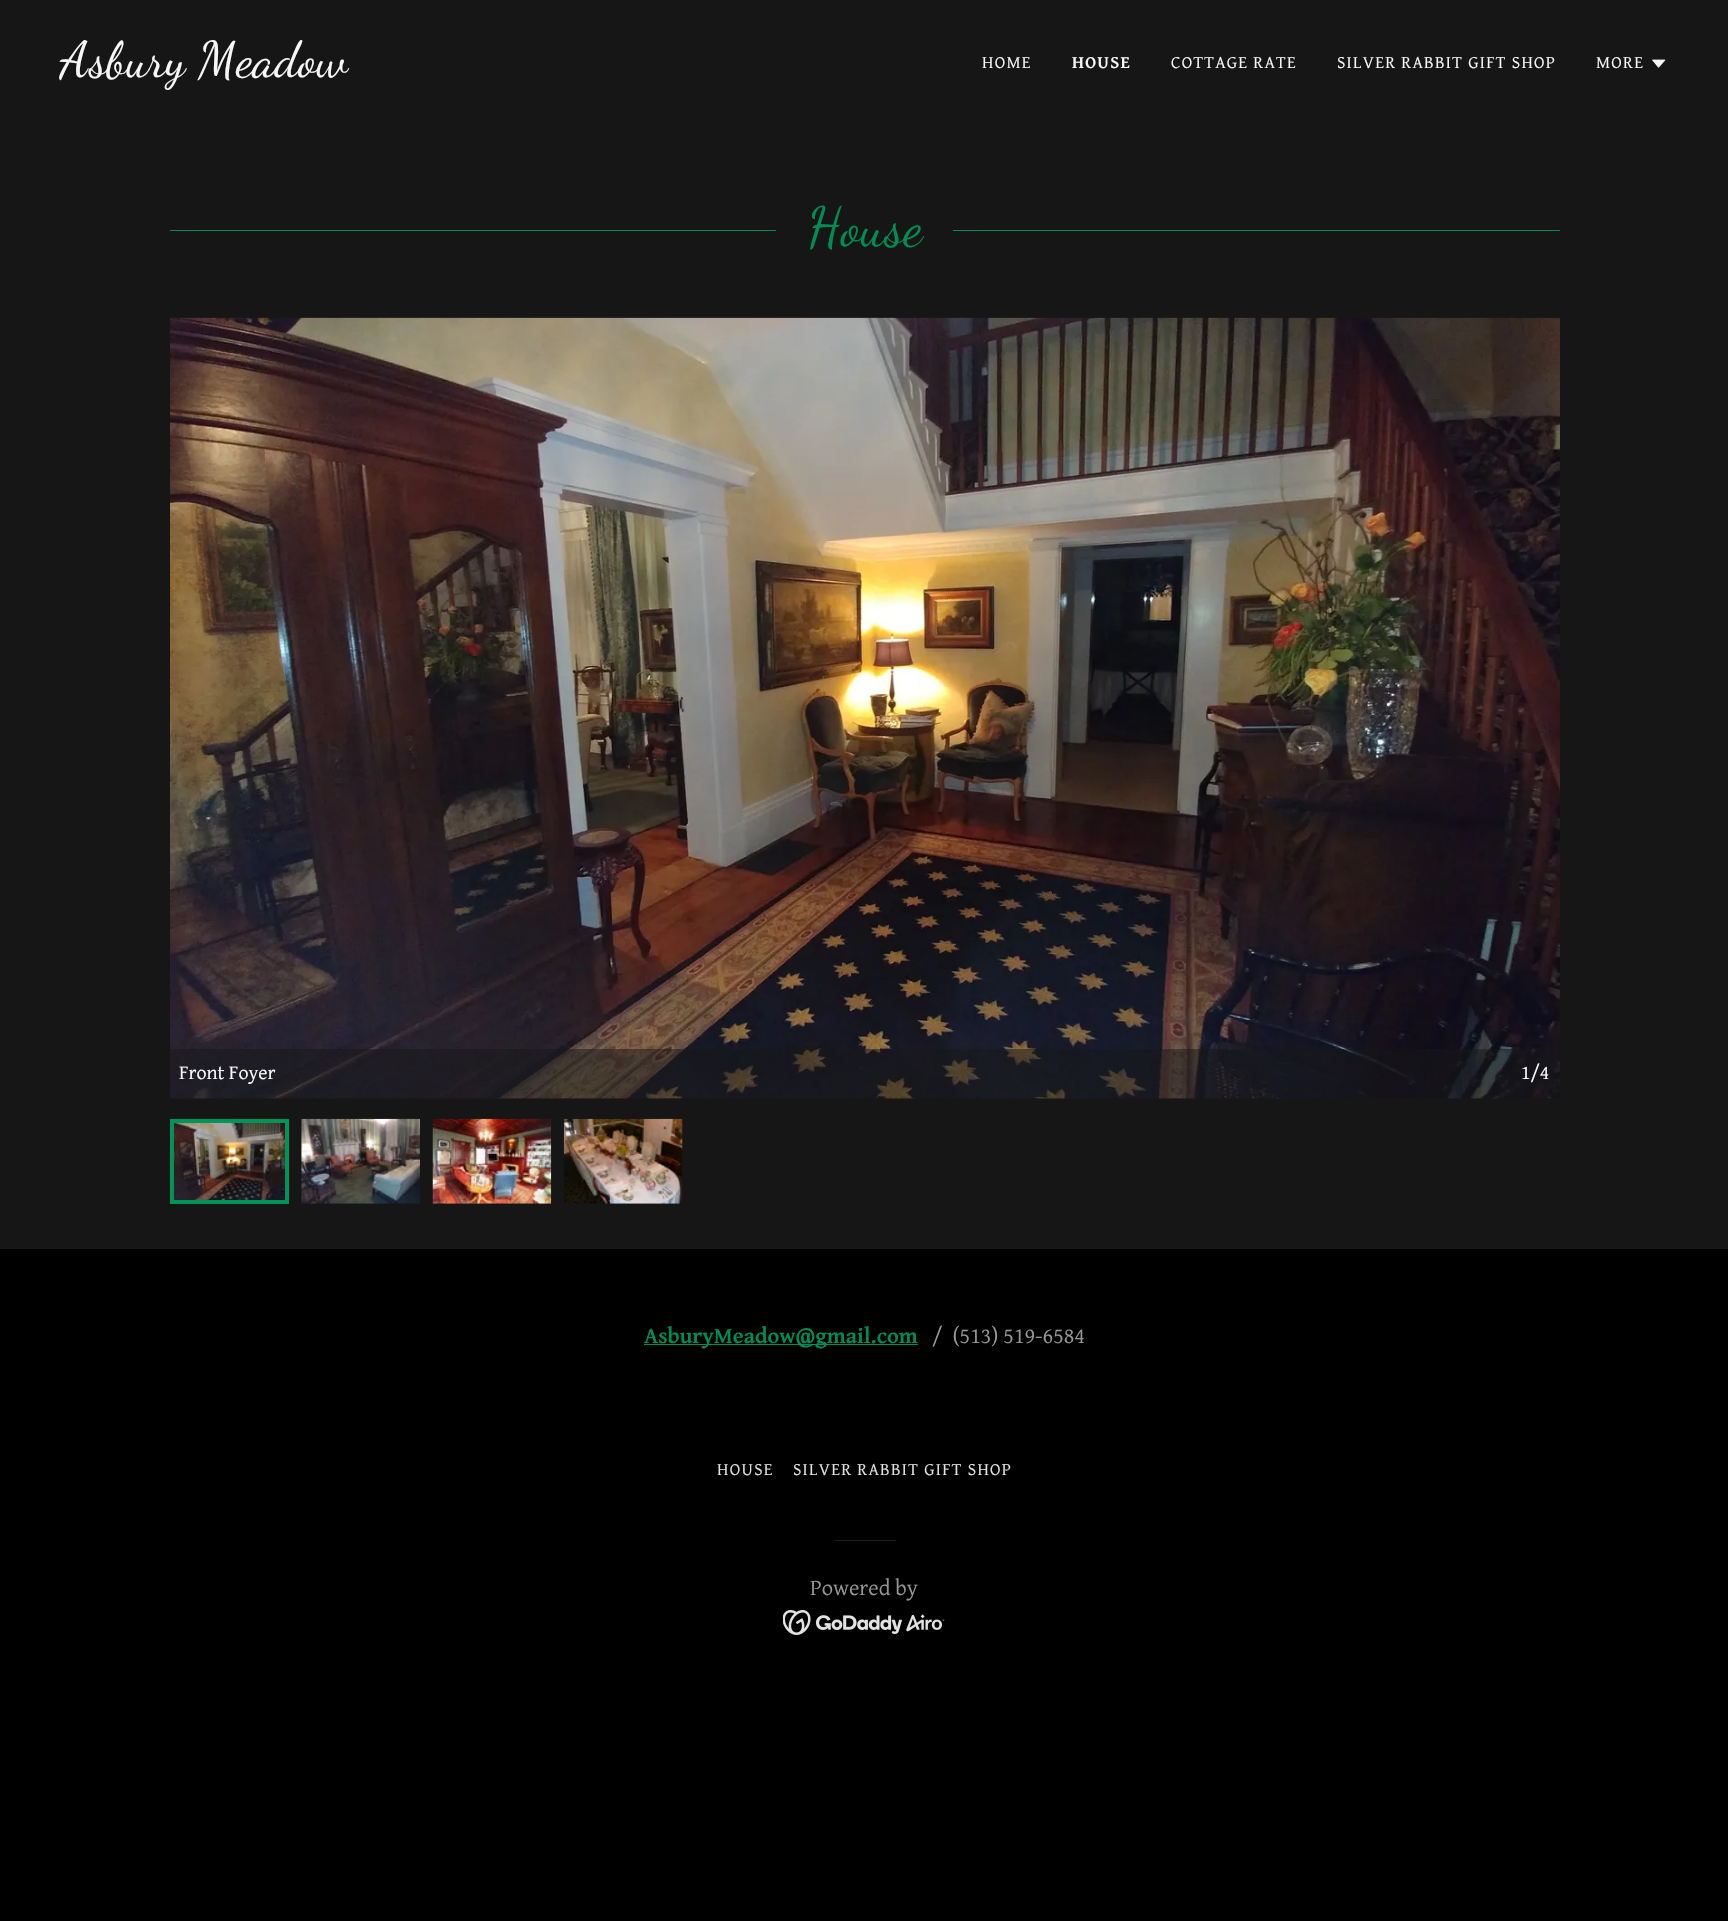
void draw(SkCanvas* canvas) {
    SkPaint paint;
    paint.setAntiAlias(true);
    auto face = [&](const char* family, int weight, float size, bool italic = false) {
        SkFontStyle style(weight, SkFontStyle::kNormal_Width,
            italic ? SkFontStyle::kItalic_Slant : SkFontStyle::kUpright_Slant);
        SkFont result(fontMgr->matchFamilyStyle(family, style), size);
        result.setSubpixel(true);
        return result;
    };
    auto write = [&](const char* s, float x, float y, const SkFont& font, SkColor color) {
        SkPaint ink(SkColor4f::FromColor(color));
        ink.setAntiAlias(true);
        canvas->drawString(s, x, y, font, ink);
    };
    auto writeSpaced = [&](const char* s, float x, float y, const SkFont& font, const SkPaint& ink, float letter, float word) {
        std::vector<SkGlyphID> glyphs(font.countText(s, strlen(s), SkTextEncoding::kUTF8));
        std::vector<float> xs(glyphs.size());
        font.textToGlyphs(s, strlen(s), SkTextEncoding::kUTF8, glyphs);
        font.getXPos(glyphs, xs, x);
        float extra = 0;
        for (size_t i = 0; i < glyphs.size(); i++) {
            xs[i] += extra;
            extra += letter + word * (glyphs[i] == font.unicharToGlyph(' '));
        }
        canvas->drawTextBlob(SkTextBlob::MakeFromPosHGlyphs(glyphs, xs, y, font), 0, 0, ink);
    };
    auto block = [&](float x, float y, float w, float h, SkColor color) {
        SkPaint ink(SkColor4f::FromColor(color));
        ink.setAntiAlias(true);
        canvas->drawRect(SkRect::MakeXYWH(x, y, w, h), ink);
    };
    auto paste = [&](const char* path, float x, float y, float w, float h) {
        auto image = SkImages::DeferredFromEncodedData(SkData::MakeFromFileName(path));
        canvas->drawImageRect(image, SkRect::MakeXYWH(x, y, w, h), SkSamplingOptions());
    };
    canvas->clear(SK_ColorBLACK);
    block(0, 0, 1728, 1249, SkColorSetRGB(22, 22, 22));
    auto kFont1 = face("Dancing Script", 400, 50);
    write("Asbury Meadow", 60, 76, kFont1, SkColorSetRGB(247, 247, 247));
    auto kFont2 = face("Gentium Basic", 400, 17.5f);
    paint.setColor(SkColorSetRGB(247, 247, 247));
    writeSpaced("HOME", 982, 68, kFont2, paint, 1.25f, 0);
    auto kFont3 = face("Gentium Basic", 700, 17.5f);
    writeSpaced("HOUSE", 1072, 68, kFont3, paint, 1.25f, 0);
    writeSpaced("COTTAGE RATE", 1171, 68, kFont2, paint, 1.25f, 0);
    writeSpaced("SILVER RABBIT GIFT SHOP", 1337, 68, kFont2, paint, 1.25f, 0);
    writeSpaced("MORE", 1596, 68, kFont2, paint, 1.25f, 0);
    paste("pic1.png", 1652, 59, 14, 9);
    block(170, 230, 606, 1, SkColorSetRGB(0, 141, 85));
    auto kFont4 = face("Dancing Script", 400, 55);
    write("House", 807, 245, kFont4, SkColorSetRGB(0, 141, 85));
    block(953, 230, 607, 1, SkColorSetRGB(0, 141, 85));
    paste("pic2.png", 170, 317, 1390, 782);
    paste("pic3.png", 170, 1118, 119, 82);
    paint.setStyle(SkPaint::kStroke_Style);
    paint.setStrokeWidth(4);
    paint.setColor(SkColorSetRGB(0, 148, 89));
    canvas->drawRect(SkRect::MakeXYWH(172, 1121, 115, 81), paint);
    paste("pic4.png", 301, 1118, 119, 86);
    paste("pic5.png", 432, 1118, 120, 86);
    paste("pic6.png", 563, 1118, 120, 86);
    block(170, 1049, 1341, 50, SkColorSetARGB(128, 22, 22, 22));
    auto kFont5 = face("Gentium Basic", 400, 20);
    write("Front Foyer", 179, 1079, kFont5, SK_ColorWHITE);
    block(1511, 1049, 49, 50, SkColorSetARGB(128, 22, 22, 22));
    write("1/4", 1521, 1079, kFont5, SK_ColorWHITE);
    block(644, 1344, 274, 1, SkColorSetRGB(0, 141, 85));
    auto kFont6 = face("Gentium Basic", 700, 22.5f);
    write("AsburyMeadow@gmail.com", 644, 1343, kFont6, SkColorSetRGB(0, 141, 85));
    auto kFont7 = face("Gentium Basic", 400, 22.5f);
    write("/  (513) 519-6584", 932, 1343, kFont7, SkColorSetRGB(150, 150, 150));
    paint.setStyle(SkPaint::kFill_Style);
    paint.setColor(SkColorSetRGB(226, 226, 226));
    writeSpaced("HOUSE", 717, 1475, kFont2, paint, 1.25f, 0);
    writeSpaced("SILVER RABBIT GIFT SHOP", 793, 1475, kFont2, paint, 1.25f, 0);
    block(834, 1540, 62, 1, SkColorSetRGB(27, 27, 27));
    write("Powered by", 810, 1595, kFont7, SkColorSetRGB(150, 150, 150));
    paste("pic7.png", 783, 1610, 162, 25);
}
